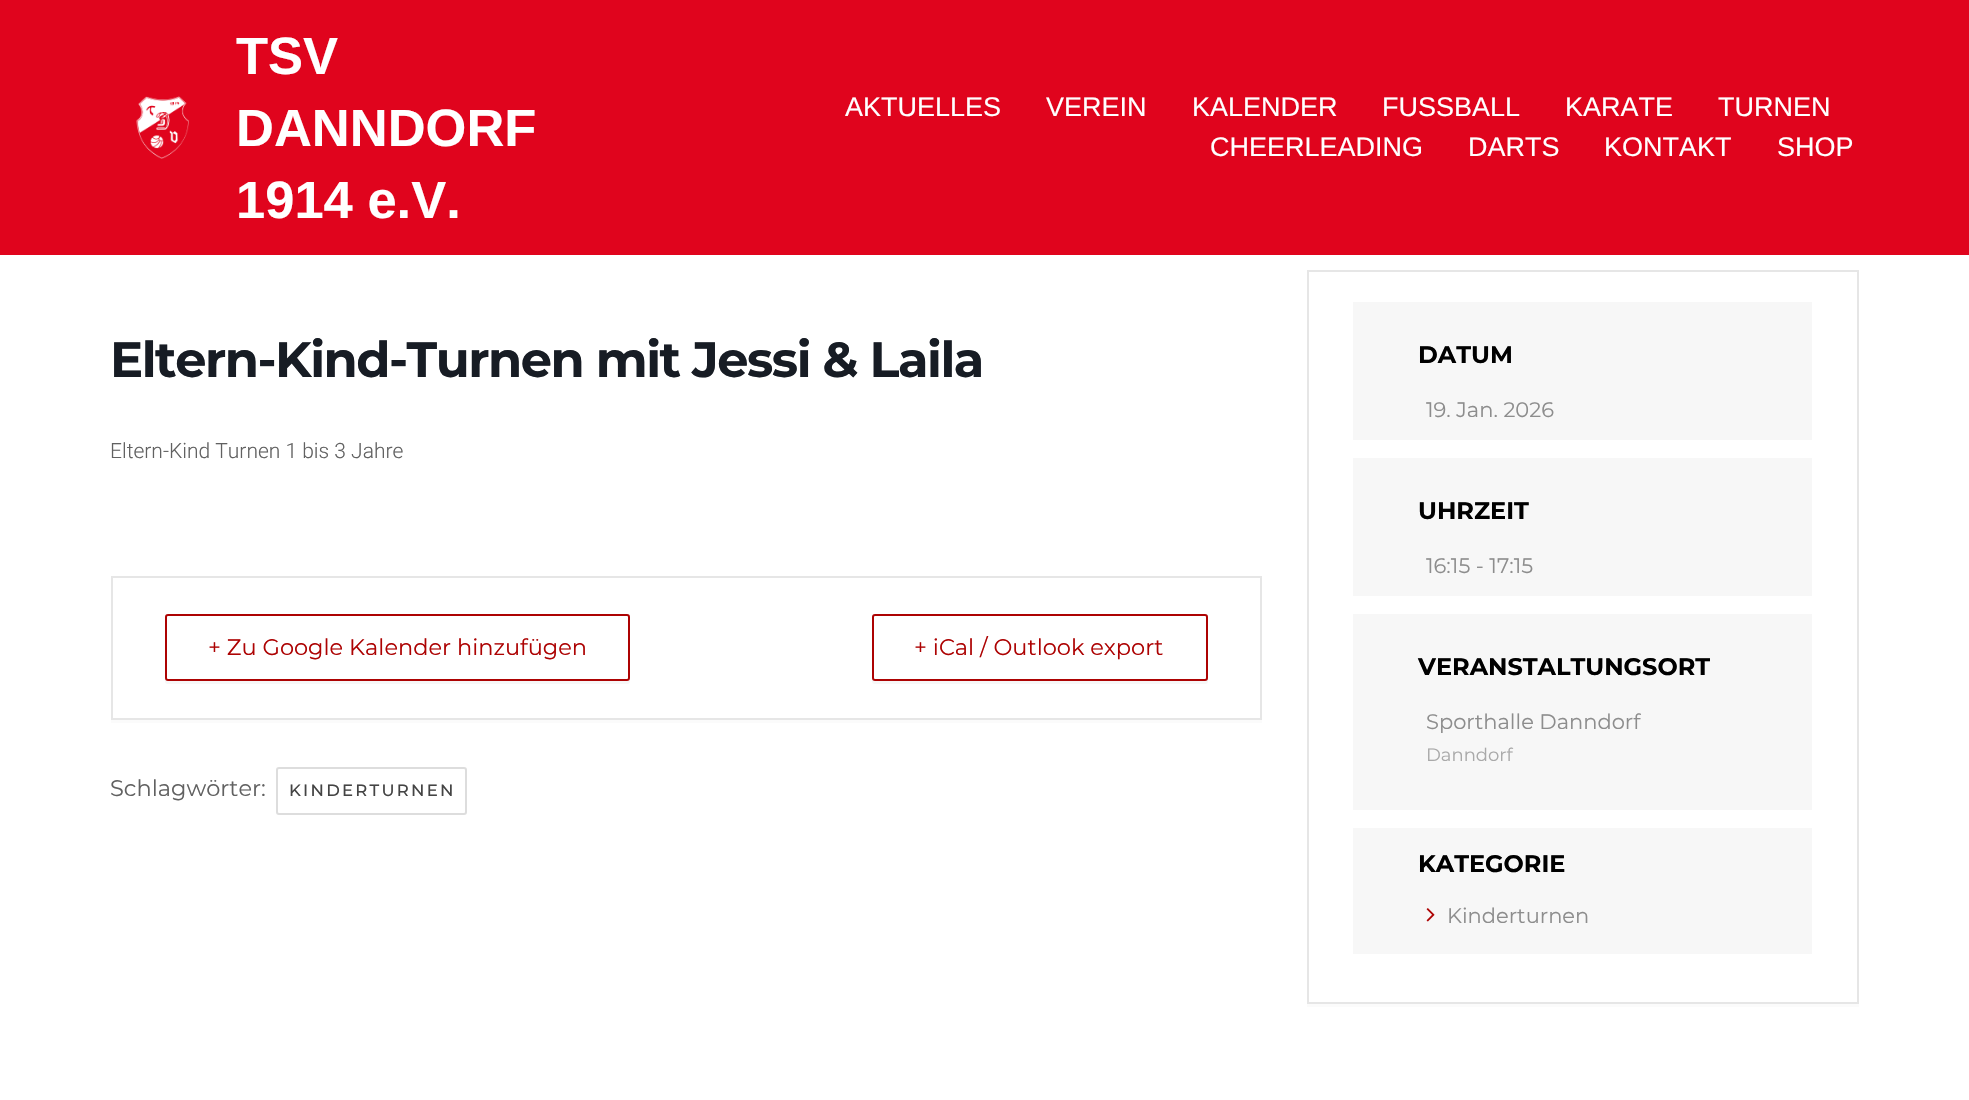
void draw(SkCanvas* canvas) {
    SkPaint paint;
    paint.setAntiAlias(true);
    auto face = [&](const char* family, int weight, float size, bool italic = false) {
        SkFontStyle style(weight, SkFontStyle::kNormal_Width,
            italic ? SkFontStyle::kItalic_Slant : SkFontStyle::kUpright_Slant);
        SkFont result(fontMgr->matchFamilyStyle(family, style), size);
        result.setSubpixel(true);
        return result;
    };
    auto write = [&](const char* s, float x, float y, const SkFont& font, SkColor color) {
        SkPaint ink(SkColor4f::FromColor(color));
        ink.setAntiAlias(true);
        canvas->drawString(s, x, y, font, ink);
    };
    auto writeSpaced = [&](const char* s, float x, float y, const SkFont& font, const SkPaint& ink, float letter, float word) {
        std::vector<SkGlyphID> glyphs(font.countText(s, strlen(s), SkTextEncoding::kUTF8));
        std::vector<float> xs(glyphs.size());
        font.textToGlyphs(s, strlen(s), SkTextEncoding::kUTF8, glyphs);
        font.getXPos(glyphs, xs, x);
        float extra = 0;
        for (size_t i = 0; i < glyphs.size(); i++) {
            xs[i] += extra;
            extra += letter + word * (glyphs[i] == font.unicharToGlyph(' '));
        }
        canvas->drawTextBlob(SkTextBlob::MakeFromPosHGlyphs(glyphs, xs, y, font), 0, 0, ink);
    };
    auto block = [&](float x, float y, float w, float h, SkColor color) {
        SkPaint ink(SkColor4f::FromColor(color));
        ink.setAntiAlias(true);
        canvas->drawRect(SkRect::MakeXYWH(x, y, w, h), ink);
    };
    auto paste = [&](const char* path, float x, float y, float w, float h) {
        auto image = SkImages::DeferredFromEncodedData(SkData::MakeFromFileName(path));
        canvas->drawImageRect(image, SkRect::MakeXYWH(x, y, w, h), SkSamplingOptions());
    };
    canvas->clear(SK_ColorWHITE);
    block(0, 0, 1969, 255, SkColorSetRGB(224, 4, 29));
    paste("pic1.png", 136, 96, 53, 63);
    auto kFont1 = face("Liberation Sans", 700, 52.5f);
    write("TSV", 236, 74, kFont1, SK_ColorWHITE);
    write("DANNDORF", 236, 146, kFont1, SK_ColorWHITE);
    write("1914 e.V.", 236, 218, kFont1, SK_ColorWHITE);
    auto kFont2 = face("Liberation Sans", 400, 27);
    write("AKTUELLES", 845, 116, kFont2, SK_ColorWHITE);
    write("VEREIN", 1046, 116, kFont2, SK_ColorWHITE);
    write("KALENDER", 1192, 116, kFont2, SK_ColorWHITE);
    write("FUSSBALL", 1382, 116, kFont2, SK_ColorWHITE);
    write("KARATE", 1565, 116, kFont2, SK_ColorWHITE);
    write("TURNEN", 1718, 116, kFont2, SK_ColorWHITE);
    write("CHEERLEADING", 1210, 156, kFont2, SK_ColorWHITE);
    write("DARTS", 1468, 156, kFont2, SK_ColorWHITE);
    write("KONTAKT", 1604, 156, kFont2, SK_ColorWHITE);
    write("SHOP", 1777, 156, kFont2, SK_ColorWHITE);
    auto kFont3 = face("Montserrat", 700, 49.5f);
    paint.setColor(SkColorSetRGB(23, 28, 36));
    writeSpaced("Eltern-Kind-Turnen mit Jessi & Laila", 110, 377, kFont3, paint, -1.5f, 0);
    auto kFont4 = face("Roboto", 300, 21);
    write("Eltern-Kind Turnen 1 bis 3 Jahre", 110, 458, kFont4, SkColorSetRGB(97, 97, 97));
    paint.setColor(SkColorSetRGB(251, 251, 251));
    canvas->drawPath(SkPathBuilder().moveTo(111, 720).lineTo(111, 723).lineTo(1262, 723).lineTo(1262, 579).lineTo(1262, 720).close().detach(), paint);
    paint.setStyle(SkPaint::kStroke_Style);
    paint.setStrokeWidth(2);
    paint.setColor(SkColorSetRGB(230, 230, 230));
    canvas->drawRect(SkRect::MakeXYWH(112, 577, 1149, 142), paint);
    paint.setStyle(SkPaint::kFill_Style);
    paint.setColor(SkColorSetRGB(247, 247, 247));
    canvas->drawPath(SkPathBuilder().moveTo(165, 678).lineTo(165, 681).cubicTo(165, 683, 166, 684, 168, 684).lineTo(627, 684).cubicTo(629, 684, 630, 683, 630, 681).lineTo(630, 678).cubicTo(630, 680, 629, 681, 627, 681).lineTo(168, 681).cubicTo(166, 681, 165, 680, 165, 678).close().detach(), paint);
    paint.setStyle(SkPaint::kStroke_Style);
    paint.setColor(SkColorSetRGB(173, 3, 3));
    canvas->drawRoundRect(SkRect::MakeXYWH(166, 615, 463, 65), 2, 2, paint);
    auto kFont5 = face("Montserrat", 400, 22.5f);
    write("+ Zu Google Kalender hinzufügen", 208, 655, kFont5, SkColorSetRGB(173, 3, 3));
    paint.setStyle(SkPaint::kFill_Style);
    paint.setColor(SkColorSetRGB(247, 247, 247));
    canvas->drawPath(SkPathBuilder().moveTo(872, 680).lineTo(872, 681).cubicTo(872, 683, 873, 684, 875, 684).lineTo(1205, 684).cubicTo(1207, 684, 1208, 683, 1208, 681).lineTo(1208, 620).lineTo(1208, 618).lineTo(1208, 678).cubicTo(1208, 680, 1206, 681, 1204, 681).lineTo(874, 681).cubicTo(873, 681, 873, 680, 872, 680).close().detach(), paint);
    paint.setColor(SK_ColorWHITE);
    canvas->drawRoundRect(SkRect::MakeXYWH(873, 615, 334, 65), 2, 2, paint);
    paint.setStyle(SkPaint::kStroke_Style);
    paint.setColor(SkColorSetRGB(173, 3, 3));
    canvas->drawRoundRect(SkRect::MakeXYWH(873, 615, 334, 65), 2, 2, paint);
    write("+ iCal / Outlook export", 914, 655, kFont5, SkColorSetRGB(173, 3, 3));
    write("Schlagwörter:", 110, 796, kFont5, SkColorSetRGB(97, 97, 97));
    paint.setColor(SkColorSetRGB(221, 221, 221));
    canvas->drawRoundRect(SkRect::MakeXYWH(277, 768, 189, 46), 2, 2, paint);
    auto kFont6 = face("Montserrat", 500, 16.5f);
    paint.setStyle(SkPaint::kFill_Style);
    paint.setColor(SkColorSetRGB(68, 68, 68));
    writeSpaced("KINDERTURNEN", 289, 796, kFont6, paint, 2.25f, 0);
    paint.setColor(SkColorSetRGB(251, 251, 251));
    canvas->drawPath(SkPathBuilder().moveTo(1307, 1004).lineTo(1307, 1007).lineTo(1859, 1007).lineTo(1859, 273).lineTo(1858, 273).lineTo(1858, 1004).close().detach(), paint);
    paint.setStyle(SkPaint::kStroke_Style);
    paint.setColor(SkColorSetRGB(230, 230, 230));
    canvas->drawRect(SkRect::MakeXYWH(1308, 271, 550, 732), paint);
    block(1353, 302, 459, 138, SkColorSetRGB(247, 247, 247));
    auto kFont7 = face("Montserrat", 700, 24);
    write("DATUM", 1418, 363, kFont7, SK_ColorBLACK);
    auto kFont8 = face("Montserrat", 400, 21);
    write("19. Jan. 2026", 1426, 417, kFont8, SkColorSetRGB(141, 141, 141));
    block(1353, 458, 459, 138, SkColorSetRGB(247, 247, 247));
    write("UHRZEIT", 1418, 519, kFont7, SK_ColorBLACK);
    write("16:15 - 17:15", 1426, 573, kFont8, SkColorSetRGB(141, 141, 141));
    block(1353, 614, 459, 196, SkColorSetRGB(247, 247, 247));
    write("VERANSTALTUNGSORT", 1418, 675, kFont7, SK_ColorBLACK);
    write("Sporthalle Danndorf", 1426, 729, kFont8, SkColorSetRGB(141, 141, 141));
    auto kFont9 = face("Montserrat", 400, 18);
    write("Danndorf", 1426, 761, kFont9, SkColorSetRGB(169, 169, 169));
    block(1353, 828, 459, 126, SkColorSetRGB(247, 247, 247));
    write("KATEGORIE", 1418, 872, kFont7, SK_ColorBLACK);
    paste("pic2.png", 1426, 908, 9, 14);
    write("Kinderturnen", 1447, 923, kFont8, SkColorSetRGB(141, 141, 141));
}
